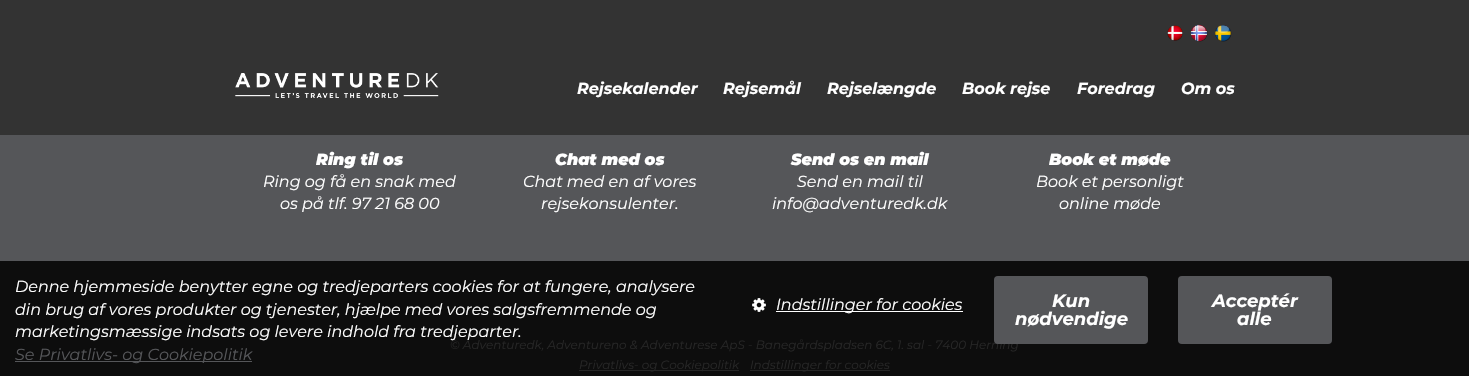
void draw(SkCanvas* canvas) {
    SkPaint paint;
    paint.setAntiAlias(true);
    auto face = [&](const char* family, int weight, float size, bool italic = false) {
        SkFontStyle style(weight, SkFontStyle::kNormal_Width,
            italic ? SkFontStyle::kItalic_Slant : SkFontStyle::kUpright_Slant);
        SkFont result(fontMgr->matchFamilyStyle(family, style), size);
        result.setSubpixel(true);
        return result;
    };
    auto write = [&](const char* s, float x, float y, const SkFont& font, SkColor color) {
        SkPaint ink(SkColor4f::FromColor(color));
        ink.setAntiAlias(true);
        canvas->drawString(s, x, y, font, ink);
    };
    auto block = [&](float x, float y, float w, float h, SkColor color) {
        SkPaint ink(SkColor4f::FromColor(color));
        ink.setAntiAlias(true);
        canvas->drawRect(SkRect::MakeXYWH(x, y, w, h), ink);
    };
    auto card = [&](float x, float y, float w, float h, float radius, SkColor color) {
        SkPaint ink(SkColor4f::FromColor(color));
        ink.setAntiAlias(true);
        canvas->drawRoundRect(SkRect::MakeXYWH(x, y, w, h), radius, radius, ink);
    };
    auto paste = [&](const char* path, float x, float y, float w, float h) {
        auto image = SkImages::DeferredFromEncodedData(SkData::MakeFromFileName(path));
        canvas->drawImageRect(image, SkRect::MakeXYWH(x, y, w, h), SkSamplingOptions());
    };
    canvas->clear(SkColorSetRGB(13, 13, 13));
    block(0, 0, 1469, 135, SkColorSetRGB(51, 51, 51));
    paste("pic1.png", 1167, 25, 16, 16);
    paste("pic2.png", 1190, 24, 18, 18);
    paste("pic3.png", 1214, 25, 18, 17);
    paste("pic4.png", 235, 73, 204, 25);
    auto kFont1 = face("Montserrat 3", 100, 16, true);
    write("Rejsekalender", 577, 94, kFont1, SK_ColorWHITE);
    write("Rejsemål", 723, 94, kFont1, SK_ColorWHITE);
    write("Rejselængde", 827, 94, kFont1, SK_ColorWHITE);
    write("Book rejse", 962, 94, kFont1, SK_ColorWHITE);
    write("Foredrag", 1077, 94, kFont1, SK_ColorWHITE);
    write("Om os", 1181, 94, kFont1, SK_ColorWHITE);
    block(0, 135, 1469, 126, SkColorSetRGB(85, 86, 89));
    auto kFont2 = face("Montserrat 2", 100, 16, true);
    write("Ring til os", 316, 165, kFont2, SK_ColorWHITE);
    auto kFont3 = face("Montserrat", 100, 16, true);
    write("Ring og få en snak med", 263, 187, kFont3, SK_ColorWHITE);
    write("os på tlf. 97 21 68 00", 280, 209, kFont3, SK_ColorWHITE);
    write("Chat med os", 555, 165, kFont2, SK_ColorWHITE);
    write("Chat med en af vores", 523, 187, kFont3, SK_ColorWHITE);
    write("rejsekonsulenter.", 541, 209, kFont3, SK_ColorWHITE);
    write("Send os en mail", 791, 165, kFont2, SK_ColorWHITE);
    write("Send en mail til", 797, 187, kFont3, SK_ColorWHITE);
    write("info@adventuredk.dk", 772, 209, kFont3, SK_ColorWHITE);
    write("Book et møde", 1049, 165, kFont2, SK_ColorWHITE);
    write("Book et personligt", 1036, 187, kFont3, SK_ColorWHITE);
    write("online møde", 1059, 209, kFont3, SK_ColorWHITE);
    auto kFont4 = face("Montserrat", 100, 12, true);
    write("© Adventuredk, Adventureno & Adventurese ApS - Banegårdspladsen 6C, 1. sal - 7400 Herning", 450, 349, kFont4, SkColorSetRGB(38, 38, 38));
    block(579, 370, 160, 1, SkColorSetRGB(38, 38, 38));
    write("Privatlivs- og Cookiepolitik", 579, 369, kFont4, SkColorSetRGB(38, 38, 38));
    block(750, 370, 140, 1, SkColorSetRGB(38, 38, 38));
    write("Indstillinger for cookies", 750, 369, kFont4, SkColorSetRGB(38, 38, 38));
    write("Denne hjemmeside benytter egne og tredjeparters cookies for at fungere, analysere", 15, 292, kFont3, SK_ColorWHITE);
    write("din brug af vores produkter og tjenester, hjælpe med vores salgsfremmende og", 15, 315, kFont3, SK_ColorWHITE);
    write("marketingsmæssige indsats og levere indhold fra tredjeparter.", 15, 337, kFont3, SK_ColorWHITE);
    block(15, 361, 237, 1, SkColorSetRGB(85, 86, 89));
    write("Se Privatlivs- og Cookiepolitik", 15, 360, kFont3, SkColorSetRGB(85, 86, 89));
    paste("pic5.png", 752, 298, 14, 14);
    block(776, 311, 187, 1, SK_ColorWHITE);
    write("Indstillinger for cookies", 776, 310, kFont3, SK_ColorWHITE);
    card(994, 276, 154, 68, 4, SkColorSetRGB(85, 86, 89));
    auto kFont5 = face("Montserrat 3", 100, 18, true);
    write("Kun", 1052, 307, kFont5, SK_ColorWHITE);
    write("nødvendige", 1015, 325, kFont5, SK_ColorWHITE);
    card(1178, 276, 154, 68, 4, SkColorSetRGB(85, 86, 89));
    write("Acceptér", 1212, 307, kFont5, SK_ColorWHITE);
    write("alle", 1237, 325, kFont5, SK_ColorWHITE);
}
